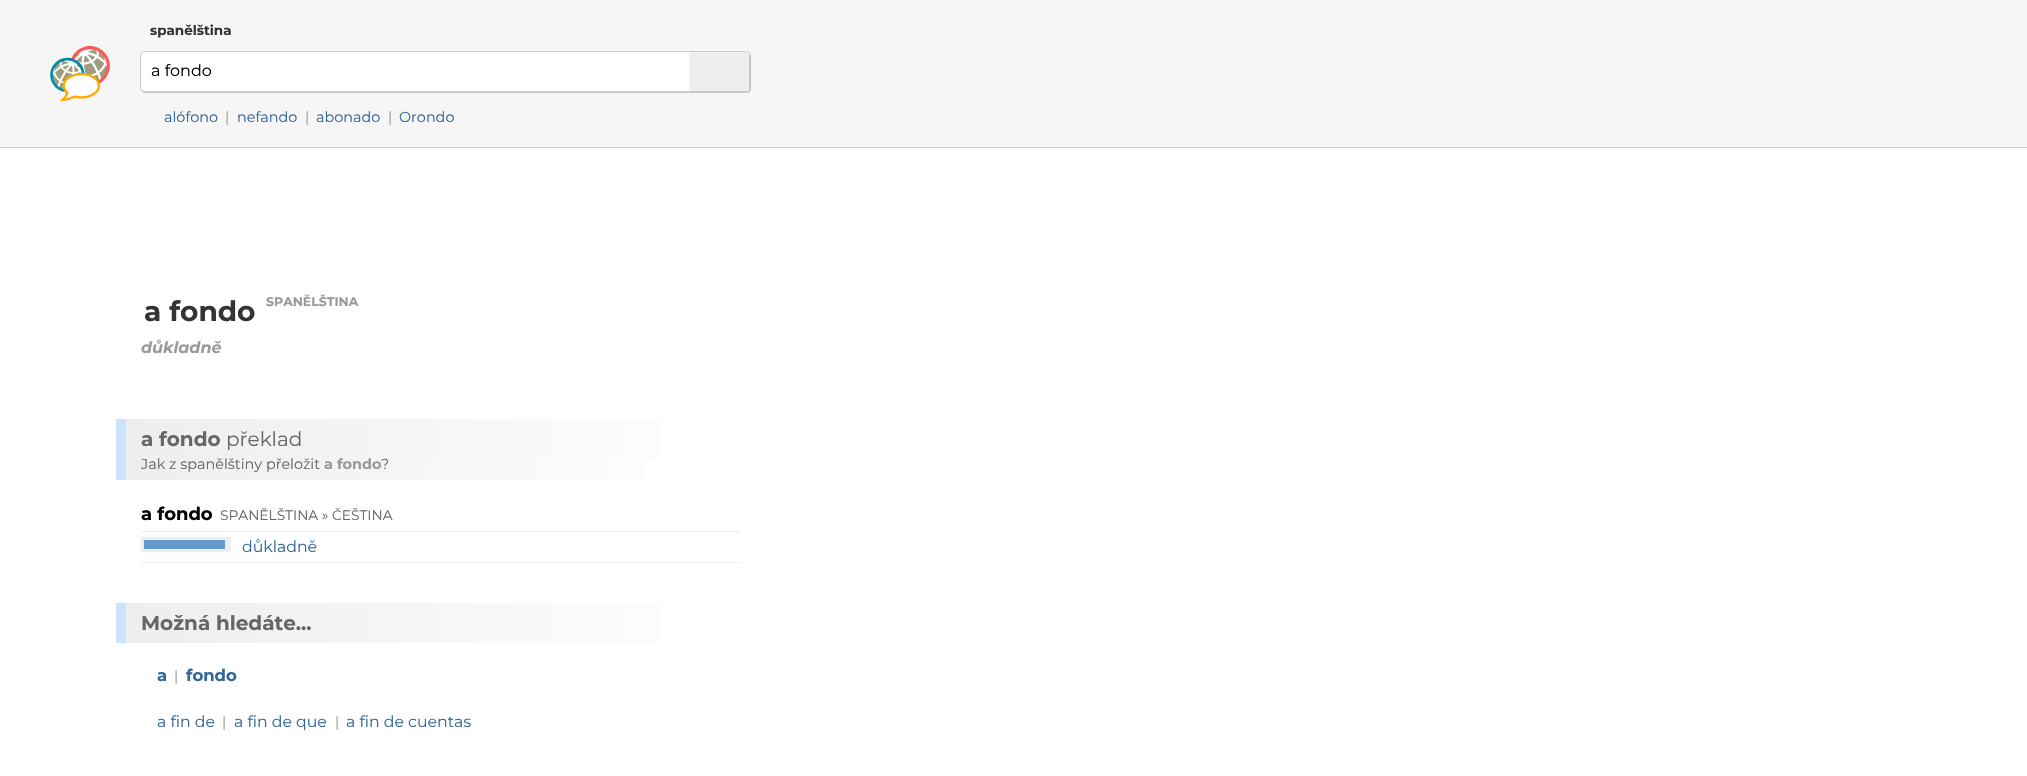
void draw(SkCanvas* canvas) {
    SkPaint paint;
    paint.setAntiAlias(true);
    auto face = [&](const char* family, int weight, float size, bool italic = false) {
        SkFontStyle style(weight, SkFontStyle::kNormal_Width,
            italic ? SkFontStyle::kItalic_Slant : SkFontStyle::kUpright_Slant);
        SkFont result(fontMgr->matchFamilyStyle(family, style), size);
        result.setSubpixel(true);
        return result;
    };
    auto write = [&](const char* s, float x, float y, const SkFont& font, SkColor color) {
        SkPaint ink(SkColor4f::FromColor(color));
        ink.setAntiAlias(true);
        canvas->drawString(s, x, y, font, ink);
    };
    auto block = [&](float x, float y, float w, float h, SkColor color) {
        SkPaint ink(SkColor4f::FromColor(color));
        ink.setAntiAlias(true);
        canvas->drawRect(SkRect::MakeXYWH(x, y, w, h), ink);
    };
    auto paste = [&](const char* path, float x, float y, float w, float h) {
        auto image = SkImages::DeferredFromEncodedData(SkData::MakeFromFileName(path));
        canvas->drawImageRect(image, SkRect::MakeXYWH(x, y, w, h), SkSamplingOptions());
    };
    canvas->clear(SkColorSetRGB(246, 246, 246));
    block(0, 147, 2027, 1, SkColorSetRGB(204, 204, 204));
    auto kFont1 = face("Montserrat", 700, 13.5f);
    write("spanělština", 150, 35, kFont1, SkColorSetRGB(51, 51, 51));
    paste("pic1.png", 50, 46, 60, 55);
    paint.setColor(SkColorSetRGB(195, 195, 195));
    canvas->drawPath(SkPathBuilder().moveTo(142, 91).cubicTo(142, 92, 144, 93, 145, 93).lineTo(747, 93).cubicTo(749, 93, 751, 91, 751, 89).lineTo(751, 56).cubicTo(751, 55, 750, 53, 749, 53).lineTo(750, 55).lineTo(750, 88).cubicTo(750, 90, 748, 92, 746, 92).lineTo(144, 92).close().detach(), paint);
    paint.setColor(SK_ColorWHITE);
    canvas->drawRoundRect(SkRect::MakeXYWH(140.5f, 51.5f, 609, 40), 3.5f, 3.5f, paint);
    paint.setStyle(SkPaint::kStroke_Style);
    paint.setStrokeWidth(1);
    paint.setColor(SkColorSetRGB(204, 204, 204));
    canvas->drawRoundRect(SkRect::MakeXYWH(140.5f, 51.5f, 609, 40), 3.5f, 3.5f, paint);
    auto kFont2 = face("Montserrat", 400, 16);
    write("a fondo", 151, 76, kFont2, SK_ColorBLACK);
    paint.setStyle(SkPaint::kFill_Style);
    paint.setColor(SkColorSetRGB(238, 238, 238));
    canvas->drawPath(SkPathBuilder().moveTo(689, 52).lineTo(744, 52).cubicTo(747, 52, 749, 54, 749, 57).lineTo(749, 86).cubicTo(749, 89, 747, 91, 744, 91).lineTo(689, 91).close().detach(), paint);
    auto kFont3 = face("Montserrat", 400, 14.4f);
    write("alófono", 164, 122, kFont3, SkColorSetRGB(51, 102, 153));
    write("|", 225, 122, kFont3, SkColorSetRGB(153, 153, 153));
    write("nefando", 237, 122, kFont3, SkColorSetRGB(51, 102, 153));
    write("|", 305, 122, kFont3, SkColorSetRGB(153, 153, 153));
    write("abonado", 316, 122, kFont3, SkColorSetRGB(51, 102, 153));
    write("|", 388, 122, kFont3, SkColorSetRGB(153, 153, 153));
    write("Orondo", 399, 122, kFont3, SkColorSetRGB(51, 102, 153));
    block(0, 148, 2027, 628, SK_ColorWHITE);
    auto kFont4 = face("Montserrat", 700, 28);
    write("a fondo", 144, 321, kFont4, SkColorSetRGB(51, 51, 51));
    auto kFont5 = face("Montserrat", 700, 12.5f);
    write("SPANĚLŠTINA", 266, 306, kFont5, SkColorSetRGB(153, 153, 153));
    auto kFont6 = face("Montserrat", 700, 16, true);
    write("důkladně", 141, 353, kFont6, SkColorSetRGB(153, 153, 153));
    {
        const SkColor colors[] = {SkColorSetRGB(238, 238, 238), SK_ColorWHITE};
        const float stops[] = {0, 1};
        const SkPoint ends[] = {{126, 439}, {751, 439}};
        paint.setShader(SkGradientShader::MakeLinear(ends, colors, stops, 2, SkTileMode::kClamp));
        paint.setAlpha(255);
    }
    canvas->drawRect(SkRect::MakeXYWH(126, 419, 533, 40), paint);
    block(116, 419, 10, 61, SkColorSetRGB(203, 228, 254));
    auto kFont7 = face("Montserrat", 700, 20);
    write("a fondo", 141, 446, kFont7, SkColorSetRGB(102, 102, 102));
    auto kFont8 = face("Montserrat", 400, 20);
    write("překlad", 226, 446, kFont8, SkColorSetRGB(102, 102, 102));
    {
        const SkColor colors[] = {SkColorSetRGB(238, 238, 238), SK_ColorWHITE};
        const float stops[] = {0, 1};
        const SkPoint ends[] = {{126, 467}, {731, 467}};
        paint.setShader(SkGradientShader::MakeLinear(ends, colors, stops, 2, SkTileMode::kClamp));
        paint.setAlpha(255);
    }
    canvas->drawRect(SkRect::MakeXYWH(126, 459, 516, 21), paint);
    write("Jak z spanělštiny přeložit", 141, 469, kFont3, SkColorSetRGB(102, 102, 102));
    auto kFont9 = face("Montserrat", 700, 14.4f);
    write("a fondo", 324, 469, kFont9, SkColorSetRGB(153, 153, 153));
    write("?", 381, 469, kFont3, SkColorSetRGB(102, 102, 102));
    block(141, 531, 600, 1, SkColorSetRGB(238, 238, 238));
    auto kFont10 = face("Montserrat", 700, 18);
    write("a fondo", 141, 520, kFont10, SK_ColorBLACK);
    auto kFont11 = face("Montserrat", 400, 13.75f);
    write("SPANĚLŠTINA » ČEŠTINA", 220, 520, kFont11, SkColorSetRGB(102, 102, 102));
    block(141, 562, 600, 1, SkColorSetRGB(238, 238, 238));
    block(141, 537, 90, 15, SkColorSetRGB(238, 238, 238));
    block(144, 540, 81, 9, SkColorSetRGB(102, 153, 204));
    auto kFont12 = face("Montserrat", 400, 15.75f);
    write("důkladně", 242, 552, kFont12, SkColorSetRGB(51, 102, 153));
    {
        const SkColor colors[] = {SkColorSetRGB(238, 238, 238), SK_ColorWHITE};
        const float stops[] = {0, 1};
        const SkPoint ends[] = {{126, 623}, {751, 623}};
        paint.setShader(SkGradientShader::MakeLinear(ends, colors, stops, 2, SkTileMode::kClamp));
        paint.setAlpha(255);
    }
    canvas->drawRect(SkRect::MakeXYWH(126, 603, 533, 40), paint);
    block(116, 603, 10, 40, SkColorSetRGB(203, 228, 254));
    write("Možná hledáte...", 141, 630, kFont7, SkColorSetRGB(102, 102, 102));
    auto kFont13 = face("Montserrat", 700, 16.5f);
    write("a", 157, 681, kFont13, SkColorSetRGB(51, 102, 153));
    write("|", 174, 681, kFont3, SkColorSetRGB(153, 153, 153));
    write("fondo", 186, 681, kFont13, SkColorSetRGB(51, 102, 153));
    write("a fin de", 157, 727, kFont12, SkColorSetRGB(51, 102, 153));
    write("|", 222, 727, kFont3, SkColorSetRGB(153, 153, 153));
    write("a fin de que", 234, 727, kFont12, SkColorSetRGB(51, 102, 153));
    write("|", 335, 727, kFont3, SkColorSetRGB(153, 153, 153));
    write("a fin de cuentas", 346, 727, kFont12, SkColorSetRGB(51, 102, 153));
}
